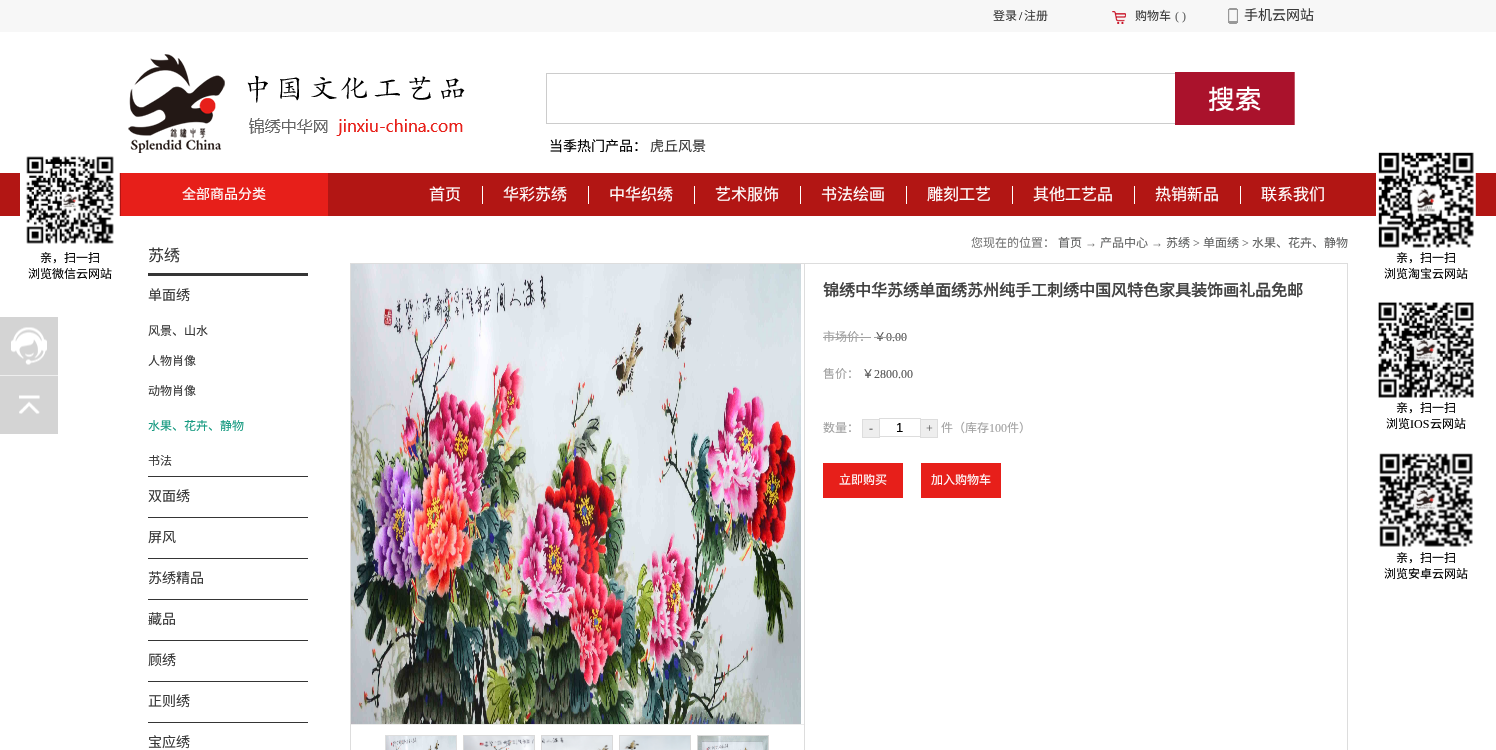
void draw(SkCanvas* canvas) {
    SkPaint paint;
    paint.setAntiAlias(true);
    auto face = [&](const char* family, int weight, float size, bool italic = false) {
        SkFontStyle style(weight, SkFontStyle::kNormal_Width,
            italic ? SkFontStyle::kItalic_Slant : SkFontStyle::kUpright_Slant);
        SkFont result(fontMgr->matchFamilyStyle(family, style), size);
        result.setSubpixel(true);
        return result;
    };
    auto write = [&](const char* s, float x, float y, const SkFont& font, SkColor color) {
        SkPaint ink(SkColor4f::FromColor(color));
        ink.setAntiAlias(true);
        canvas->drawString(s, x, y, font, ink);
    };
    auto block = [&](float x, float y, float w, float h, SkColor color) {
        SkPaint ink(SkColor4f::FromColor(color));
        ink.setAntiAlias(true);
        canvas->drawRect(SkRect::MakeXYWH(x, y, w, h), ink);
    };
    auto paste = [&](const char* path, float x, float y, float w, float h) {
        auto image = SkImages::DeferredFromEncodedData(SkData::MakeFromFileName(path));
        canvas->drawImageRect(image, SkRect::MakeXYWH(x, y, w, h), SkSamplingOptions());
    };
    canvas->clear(SK_ColorWHITE);
    block(0, 0, 1496, 32, SkColorSetRGB(247, 247, 247));
    auto kFont1 = face("Noto Sans CJK SC", 400, 12);
    write("登录", 993, 20, kFont1, SkColorSetRGB(57, 57, 57));
    auto kFont2 = face("Liberation Serif", 400, 12);
    write("/", 1019, 20, kFont2, SK_ColorBLACK);
    write("注册", 1024, 20, kFont1, SkColorSetRGB(57, 57, 57));
    paste("pic1.png", 1112, 11, 14, 13);
    write("购物车", 1135, 20, kFont1, SkColorSetRGB(57, 57, 57));
    write("( )", 1175, 20, kFont2, SkColorSetRGB(97, 98, 98));
    paste("pic2.png", 1228, 8, 10, 16);
    auto kFont3 = face("Noto Sans CJK SC", 400, 14);
    write("手机云网站", 1244, 20, kFont3, SkColorSetRGB(57, 57, 57));
    paste("pic3.png", 128, 54, 337, 99);
    block(546, 73, 629, 1, SkColorSetRGB(204, 204, 204));
    block(546, 123, 629, 1, SkColorSetRGB(204, 204, 204));
    block(546, 73, 1, 51, SkColorSetRGB(204, 204, 204));
    paste("pic4.png", 1175, 72, 120, 53);
    write("当季热门产品：", 549, 151, kFont3, SK_ColorBLACK);
    write("虎丘风景", 650, 151, kFont3, SkColorSetRGB(57, 57, 57));
    block(0, 173, 1496, 43, SkColorSetRGB(178, 22, 20));
    block(121, 173, 207, 43, SkColorSetRGB(231, 31, 26));
    write("全部商品分类", 182, 199, kFont3, SK_ColorWHITE);
    auto kFont4 = face("Noto Sans CJK SC", 400, 16);
    write("首页", 429, 200, kFont4, SK_ColorWHITE);
    block(482, 186, 1, 18, SK_ColorWHITE);
    write("华彩苏绣", 503, 200, kFont4, SK_ColorWHITE);
    block(588, 186, 1, 18, SK_ColorWHITE);
    write("中华织绣", 609, 200, kFont4, SK_ColorWHITE);
    block(694, 186, 1, 18, SK_ColorWHITE);
    write("艺术服饰", 715, 200, kFont4, SK_ColorWHITE);
    block(800, 186, 1, 18, SK_ColorWHITE);
    write("书法绘画", 821, 200, kFont4, SK_ColorWHITE);
    block(906, 186, 1, 18, SK_ColorWHITE);
    write("雕刻工艺", 927, 200, kFont4, SK_ColorWHITE);
    block(1012, 186, 1, 18, SK_ColorWHITE);
    write("其他工艺品", 1033, 200, kFont4, SK_ColorWHITE);
    block(1134, 186, 1, 18, SK_ColorWHITE);
    write("热销新品", 1155, 200, kFont4, SK_ColorWHITE);
    block(1240, 186, 1, 18, SK_ColorWHITE);
    write("联系我们", 1261, 200, kFont4, SK_ColorWHITE);
    paste("pic5.png", 20, 156, 100, 88);
    write("亲，扫一扫", 40, 262, kFont1, SK_ColorBLACK);
    write("浏览微信云网站", 28, 278, kFont1, SK_ColorBLACK);
    block(148, 273, 160, 3, SkColorSetRGB(53, 53, 53));
    write("苏绣", 148, 261, kFont4, SkColorSetRGB(57, 57, 57));
    block(148, 476, 160, 1, SkColorSetRGB(53, 53, 53));
    write("单面绣", 148, 300, kFont3, SkColorSetRGB(57, 57, 57));
    write("风景、山水", 148, 335, kFont1, SkColorSetRGB(57, 57, 57));
    write("人物肖像", 148, 365, kFont1, SkColorSetRGB(57, 57, 57));
    write("动物肖像", 148, 395, kFont1, SkColorSetRGB(57, 57, 57));
    write("水果、花卉、静物", 148, 430, kFont1, SkColorSetRGB(21, 154, 128));
    write("书法", 148, 465, kFont1, SkColorSetRGB(57, 57, 57));
    block(148, 517, 160, 1, SkColorSetRGB(53, 53, 53));
    write("双面绣", 148, 501, kFont3, SkColorSetRGB(57, 57, 57));
    block(148, 558, 160, 1, SkColorSetRGB(53, 53, 53));
    write("屏风", 148, 542, kFont3, SkColorSetRGB(57, 57, 57));
    block(148, 599, 160, 1, SkColorSetRGB(53, 53, 53));
    write("苏绣精品", 148, 583, kFont3, SkColorSetRGB(57, 57, 57));
    block(148, 640, 160, 1, SkColorSetRGB(53, 53, 53));
    write("藏品", 148, 624, kFont3, SkColorSetRGB(57, 57, 57));
    block(148, 681, 160, 1, SkColorSetRGB(53, 53, 53));
    write("顾绣", 148, 665, kFont3, SkColorSetRGB(57, 57, 57));
    block(148, 722, 160, 1, SkColorSetRGB(53, 53, 53));
    write("正则绣", 148, 706, kFont3, SkColorSetRGB(57, 57, 57));
    write("宝应绣", 148, 747, kFont3, SkColorSetRGB(57, 57, 57));
    write("您现在的位置：", 971, 247, kFont1, SkColorSetRGB(119, 119, 119));
    write("首页", 1058, 247, kFont1, SkColorSetRGB(97, 98, 98));
    write("→", 1085, 247, kFont2, SkColorSetRGB(119, 119, 119));
    write("产品中心", 1100, 247, kFont1, SkColorSetRGB(97, 98, 98));
    write("→", 1151, 247, kFont2, SkColorSetRGB(119, 119, 119));
    write("苏绣", 1166, 247, kFont1, SkColorSetRGB(97, 98, 98));
    write(">", 1193, 247, kFont2, SkColorSetRGB(119, 119, 119));
    write("单面绣", 1203, 247, kFont1, SkColorSetRGB(97, 98, 98));
    write(">", 1242, 247, kFont2, SkColorSetRGB(119, 119, 119));
    write("水果、花卉、静物", 1252, 247, kFont1, SkColorSetRGB(97, 98, 98));
    paint.setStyle(SkPaint::kStroke_Style);
    paint.setStrokeWidth(1);
    paint.setColor(SkColorSetRGB(221, 221, 221));
    canvas->drawRect(SkRect::MakeXYWH(350.5f, 263.5f, 997, 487), paint);
    block(804, 264, 1, 486, SkColorSetRGB(221, 221, 221));
    block(351, 724, 453, 1, SkColorSetRGB(236, 236, 236));
    paste("pic6.png", 351, 264, 450, 460);
    canvas->drawRect(SkRect::MakeXYWH(385.5f, 735.5f, 71, 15), paint);
    paste("pic7.png", 386, 736, 70, 14);
    paint.setColor(SkColorSetRGB(217, 217, 217));
    canvas->drawRect(SkRect::MakeXYWH(463.5f, 735.5f, 71, 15), paint);
    paste("pic8.png", 464, 736, 70, 14);
    canvas->drawRect(SkRect::MakeXYWH(541.5f, 735.5f, 71, 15), paint);
    paste("pic9.png", 542, 736, 70, 14);
    canvas->drawRect(SkRect::MakeXYWH(619.5f, 735.5f, 71, 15), paint);
    paste("pic10.png", 620, 736, 70, 14);
    canvas->drawRect(SkRect::MakeXYWH(697.5f, 735.5f, 71, 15), paint);
    paste("pic11.png", 698, 736, 70, 14);
    auto kFont5 = face("Noto Sans CJK SC", 700, 16);
    write("锦绣中华苏绣单面绣苏州纯手工刺绣中国风特色家具装饰画礼品免邮", 823, 296, kFont5, SkColorSetRGB(67, 67, 67));
    write("市场价：", 823, 341, kFont1, SkColorSetRGB(161, 161, 161));
    block(823, 337, 48, 1, SkColorSetRGB(161, 161, 161));
    write("￥", 874, 341, kFont1, SkColorSetRGB(86, 86, 86));
    write("0.00", 886, 341, kFont2, SkColorSetRGB(86, 86, 86));
    block(874, 337, 33, 1, SkColorSetRGB(161, 161, 161));
    write("售价：", 823, 378, kFont1, SkColorSetRGB(161, 161, 161));
    write("￥", 862, 378, kFont1, SkColorSetRGB(86, 86, 86));
    write("2800.00", 874, 378, kFont2, SkColorSetRGB(86, 86, 86));
    write("数量：", 823, 432, kFont1, SkColorSetRGB(161, 161, 161));
    paint.setStyle(SkPaint::kFill_Style);
    paint.setColor(SkColorSetRGB(238, 238, 238));
    canvas->drawRect(SkRect::MakeXYWH(862.5f, 419.5f, 17, 18), paint);
    paint.setStyle(SkPaint::kStroke_Style);
    paint.setColor(SkColorSetRGB(221, 221, 221));
    canvas->drawRect(SkRect::MakeXYWH(862.5f, 419.5f, 17, 18), paint);
    write("-", 869, 432, kFont2, SkColorSetRGB(86, 86, 86));
    canvas->drawRect(SkRect::MakeXYWH(879.5f, 418.5f, 41, 18), paint);
    auto kFont6 = face("Liberation Sans", 400, 13);
    write("1", 896, 432, kFont6, SK_ColorBLACK);
    paint.setStyle(SkPaint::kFill_Style);
    paint.setColor(SkColorSetRGB(238, 238, 238));
    canvas->drawRect(SkRect::MakeXYWH(920.5f, 419.5f, 17, 18), paint);
    paint.setStyle(SkPaint::kStroke_Style);
    paint.setColor(SkColorSetRGB(221, 221, 221));
    canvas->drawRect(SkRect::MakeXYWH(920.5f, 419.5f, 17, 18), paint);
    write("+", 926, 432, kFont2, SkColorSetRGB(86, 86, 86));
    write("件（库存", 941, 432, kFont1, SkColorSetRGB(161, 161, 161));
    write("100", 989, 432, kFont2, SkColorSetRGB(161, 161, 161));
    write("件）", 1007, 432, kFont1, SkColorSetRGB(161, 161, 161));
    block(823, 463, 80, 35, SkColorSetRGB(231, 31, 26));
    write("立即购买", 839, 484, kFont1, SK_ColorWHITE);
    block(921, 463, 80, 35, SkColorSetRGB(231, 31, 26));
    write("加入购物车", 931, 484, kFont1, SK_ColorWHITE);
    paste("pic12.png", 1376, 152, 100, 96);
    write("亲，扫一扫", 1396, 262, kFont1, SK_ColorBLACK);
    write("浏览淘宝云网站", 1384, 278, kFont1, SK_ColorBLACK);
    block(0, 375, 58, 1, SkColorSetRGB(238, 238, 238));
    block(0, 317, 58, 58, SkColorSetRGB(212, 212, 212));
    paste("pic13.png", 11, 327, 36, 38);
    block(0, 376, 58, 58, SkColorSetRGB(212, 212, 212));
    paste("pic14.png", 19, 395, 21, 19);
    paste("pic15.png", 1378, 302, 96, 96);
    write("亲，扫一扫", 1396, 412, kFont1, SK_ColorBLACK);
    write("浏览", 1386, 428, kFont1, SK_ColorBLACK);
    write("IOS", 1410, 428, kFont2, SK_ColorBLACK);
    write("云网站", 1430, 428, kFont1, SK_ColorBLACK);
    paste("pic16.png", 1379, 453, 94, 94);
    write("亲，扫一扫", 1396, 562, kFont1, SK_ColorBLACK);
    write("浏览安卓云网站", 1384, 578, kFont1, SK_ColorBLACK);
}
